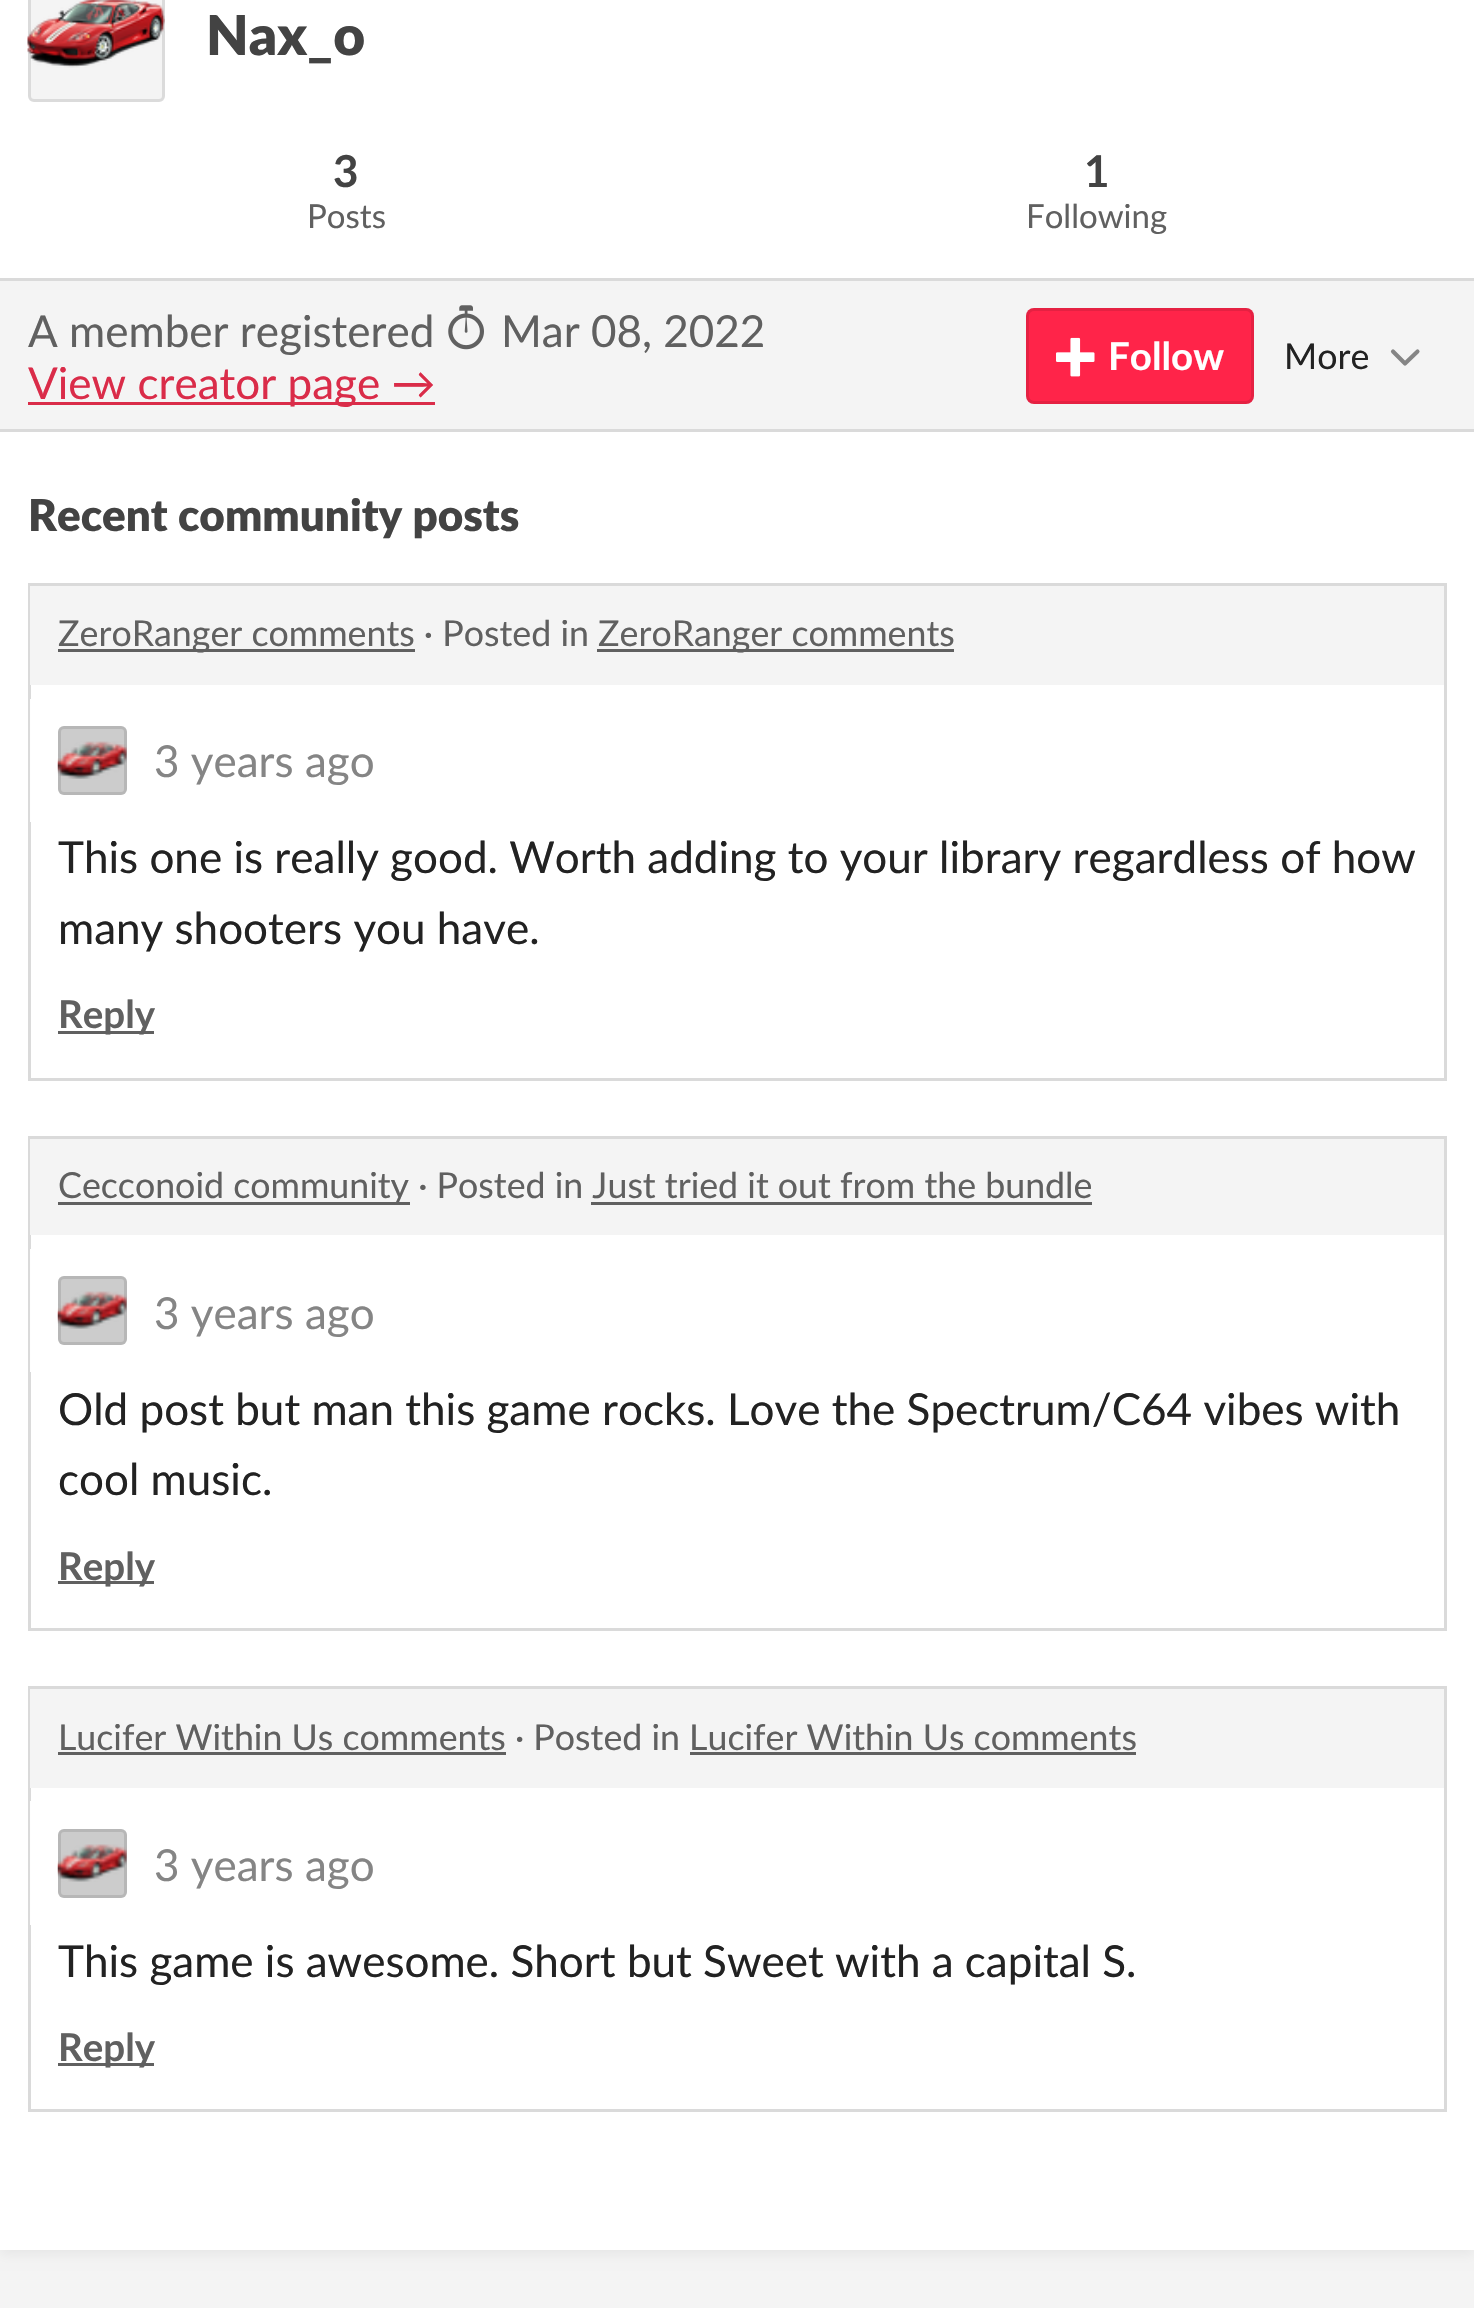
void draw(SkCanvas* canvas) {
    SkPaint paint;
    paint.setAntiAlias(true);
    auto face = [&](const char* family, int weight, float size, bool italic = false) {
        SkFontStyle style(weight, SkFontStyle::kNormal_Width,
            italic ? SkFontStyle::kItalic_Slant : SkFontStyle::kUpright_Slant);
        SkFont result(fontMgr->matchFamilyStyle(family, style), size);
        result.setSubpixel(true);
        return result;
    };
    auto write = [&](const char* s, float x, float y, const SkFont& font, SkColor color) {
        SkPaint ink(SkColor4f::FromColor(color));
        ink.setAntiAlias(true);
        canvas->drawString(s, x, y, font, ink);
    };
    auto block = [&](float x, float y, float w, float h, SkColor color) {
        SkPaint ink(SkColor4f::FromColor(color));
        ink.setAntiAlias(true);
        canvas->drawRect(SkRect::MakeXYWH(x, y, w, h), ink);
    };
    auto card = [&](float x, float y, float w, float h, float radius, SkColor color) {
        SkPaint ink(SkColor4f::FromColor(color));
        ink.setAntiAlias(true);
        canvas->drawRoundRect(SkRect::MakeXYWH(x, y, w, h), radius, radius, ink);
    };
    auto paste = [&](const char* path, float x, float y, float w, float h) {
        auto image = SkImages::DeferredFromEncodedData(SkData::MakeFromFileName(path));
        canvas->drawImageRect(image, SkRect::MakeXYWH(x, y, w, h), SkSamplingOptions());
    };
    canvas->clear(SkColorSetRGB(244, 244, 244));
    paint.setColor(SkColorSetARGB(13, 0, 0, 0));
    paint.setMaskFilter(SkMaskFilter::MakeBlur(kNormal_SkBlurStyle, 5.5f));
    canvas->drawRect(SkRect::MakeXYWH(0, -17, 1474, 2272), paint);
    paint.setMaskFilter(nullptr);
    block(0, 0, 1474, 2250, SK_ColorWHITE);
    block(0, 278, 1474, 3, SkColorSetRGB(218, 218, 218));
    card(28, -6, 137, 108, 6, SkColorSetRGB(244, 244, 244));
    paste("pic1.png", 27, 0, 138, 68);
    paint.setStyle(SkPaint::kStroke_Style);
    paint.setStrokeWidth(3);
    paint.setColor(SkColorSetARGB(26, 0, 0, 0));
    canvas->drawRoundRect(SkRect::MakeXYWH(29.5f, -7.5f, 134, 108), 4.5f, 4.5f, paint);
    auto kFont1 = face("Lato", 900, 55);
    write("Nax_o", 206, 55, kFont1, SkColorSetRGB(67, 67, 67));
    auto kFont2 = face("Lato", 700, 44);
    write("3", 333, 187, kFont2, SkColorSetRGB(67, 67, 67));
    auto kFont3 = face("Lato", 400, 33);
    write("Posts", 307, 228, kFont3, SkColorSetRGB(96, 96, 96));
    write("1", 1084, 187, kFont2, SkColorSetRGB(67, 67, 67));
    write("Following", 1026, 228, kFont3, SkColorSetRGB(96, 96, 96));
    block(0, 281, 1474, 148, SkColorSetRGB(244, 244, 244));
    block(0, 429, 1474, 3, SkColorSetRGB(218, 218, 218));
    auto kFont4 = face("Lato", 400, 44);
    write("A member registered", 28, 347, kFont4, SkColorSetRGB(96, 96, 96));
    paste("pic2.png", 448, 305, 36, 45);
    write("Mar 08, 2022", 501, 347, kFont4, SkColorSetRGB(96, 96, 96));
    block(28, 402, 407, 3, SkColorSetRGB(218, 44, 73));
    write("View creator page →", 28, 399, kFont4, SkColorSetRGB(218, 44, 73));
    card(1026, 308, 228, 96, 8, SkColorSetRGB(255, 36, 73));
    canvas->drawRoundRect(SkRect::MakeXYWH(1027.5f, 309.5f, 225, 93), 6.5f, 6.5f, paint);
    paste("pic3.png", 1056, 337, 39, 40);
    auto kFont5 = face("Lato", 700, 38.5f);
    write("Follow", 1108, 370, kFont5, SK_ColorWHITE);
    auto kFont6 = face("Lato", 400, 35.75f);
    write("More", 1284, 369, kFont6, SkColorSetRGB(34, 34, 34));
    paint.setStrokeWidth(4.1f);
    paint.setStrokeCap(SkPaint::kRound_Cap);
    paint.setStrokeJoin(SkPaint::kRound_Join);
    paint.setColor(SkColorSetRGB(133, 133, 133));
    canvas->drawPath(SkPathBuilder().moveTo(1393, 351.5f).lineTo(1405, 363.5f).lineTo(1417.5f, 351.5f).detach(), paint);
    auto kFont7 = face("Lato", 900, 44);
    write("Recent community posts", 28, 531, kFont7, SkColorSetRGB(67, 67, 67));
    paint.setStrokeWidth(3);
    paint.setStrokeCap(SkPaint::kButt_Cap);
    paint.setStrokeJoin(SkPaint::kMiter_Join);
    paint.setColor(SkColorSetRGB(218, 218, 218));
    canvas->drawRect(SkRect::MakeXYWH(29.5f, 584.5f, 1416, 495), paint);
    block(30, 586, 1414, 99, SkColorSetRGB(244, 244, 244));
    block(58, 649, 357, 3, SkColorSetRGB(96, 96, 96));
    write("ZeroRanger comments · Posted in", 58, 646, kFont6, SkColorSetRGB(96, 96, 96));
    block(597, 649, 357, 3, SkColorSetRGB(96, 96, 96));
    write("ZeroRanger comments", 598, 646, kFont6, SkColorSetRGB(96, 96, 96));
    paint.setStrokeWidth(28);
    paint.setColor(SkColorSetARGB(242, 255, 255, 255));
    canvas->drawRect(SkRect::MakeXYWH(44, 713, 96, 95), paint);
    card(58, 726, 69, 69, 6, SkColorSetRGB(204, 204, 204));
    paste("pic4.png", 57, 741, 70, 38);
    paint.setStrokeWidth(3);
    paint.setColor(SkColorSetARGB(26, 0, 0, 0));
    canvas->drawRoundRect(SkRect::MakeXYWH(59.5f, 727.5f, 66, 66), 4.5f, 4.5f, paint);
    write("3 years ago", 154, 777, kFont4, SkColorSetRGB(133, 133, 133));
    write("This one is really good. Worth adding to your library regardless of how", 58, 873, kFont4, SkColorSetRGB(34, 34, 34));
    write("many shooters you have.", 58, 944, kFont4, SkColorSetRGB(34, 34, 34));
    block(58, 1031, 96, 3, SkColorSetRGB(96, 96, 96));
    write("Reply", 58, 1028, kFont5, SkColorSetRGB(96, 96, 96));
    paint.setColor(SkColorSetRGB(218, 218, 218));
    canvas->drawRect(SkRect::MakeXYWH(29.5f, 1137.5f, 1416, 492), paint);
    block(30, 1139, 1414, 96, SkColorSetRGB(244, 244, 244));
    block(58, 1202, 352, 3, SkColorSetRGB(96, 96, 96));
    write("Cecconoid community · Posted in Just tried it out from the bundle", 58, 1198, kFont6, SkColorSetRGB(96, 96, 96));
    block(591, 1202, 501, 3, SkColorSetRGB(96, 96, 96));
    paint.setStrokeWidth(28);
    paint.setColor(SkColorSetARGB(242, 255, 255, 255));
    canvas->drawRect(SkRect::MakeXYWH(44, 1263, 96, 95), paint);
    card(58, 1276, 69, 69, 6, SkColorSetRGB(204, 204, 204));
    paste("pic5.png", 57, 1291, 70, 38);
    paint.setStrokeWidth(3);
    paint.setColor(SkColorSetARGB(26, 0, 0, 0));
    canvas->drawRoundRect(SkRect::MakeXYWH(59.5f, 1277.5f, 66, 66), 4.5f, 4.5f, paint);
    write("3 years ago", 154, 1329, kFont4, SkColorSetRGB(133, 133, 133));
    write("Old post but man this game rocks. Love the Spectrum/C64 vibes with", 58, 1425, kFont4, SkColorSetRGB(34, 34, 34));
    write("cool music.", 58, 1495, kFont4, SkColorSetRGB(34, 34, 34));
    block(58, 1581, 96, 3, SkColorSetRGB(96, 96, 96));
    write("Reply", 58, 1580, kFont5, SkColorSetRGB(96, 96, 96));
    paint.setColor(SkColorSetRGB(218, 218, 218));
    canvas->drawRect(SkRect::MakeXYWH(29.5f, 1687.5f, 1416, 423), paint);
    block(30, 1689, 1414, 99, SkColorSetRGB(244, 244, 244));
    write("Lucifer Within Us comments · Posted in Lucifer Within Us comments", 58, 1750, kFont6, SkColorSetRGB(96, 96, 96));
    block(58, 1752, 448, 3, SkColorSetRGB(96, 96, 96));
    block(690, 1752, 446, 3, SkColorSetRGB(96, 96, 96));
    paint.setStrokeWidth(28);
    paint.setColor(SkColorSetARGB(242, 255, 255, 255));
    canvas->drawRect(SkRect::MakeXYWH(44, 1815, 96, 96), paint);
    card(58, 1829, 69, 69, 6, SkColorSetRGB(204, 204, 204));
    paste("pic6.png", 57, 1844, 70, 38);
    paint.setStrokeWidth(3);
    paint.setColor(SkColorSetARGB(26, 0, 0, 0));
    canvas->drawRoundRect(SkRect::MakeXYWH(59.5f, 1830.5f, 66, 66), 4.5f, 4.5f, paint);
    write("3 years ago", 154, 1881, kFont4, SkColorSetRGB(133, 133, 133));
    write("This game is awesome. Short but Sweet with a capital S.", 58, 1977, kFont4, SkColorSetRGB(34, 34, 34));
    block(58, 2063, 96, 3, SkColorSetRGB(96, 96, 96));
    write("Reply", 58, 2061, kFont5, SkColorSetRGB(96, 96, 96));
}
